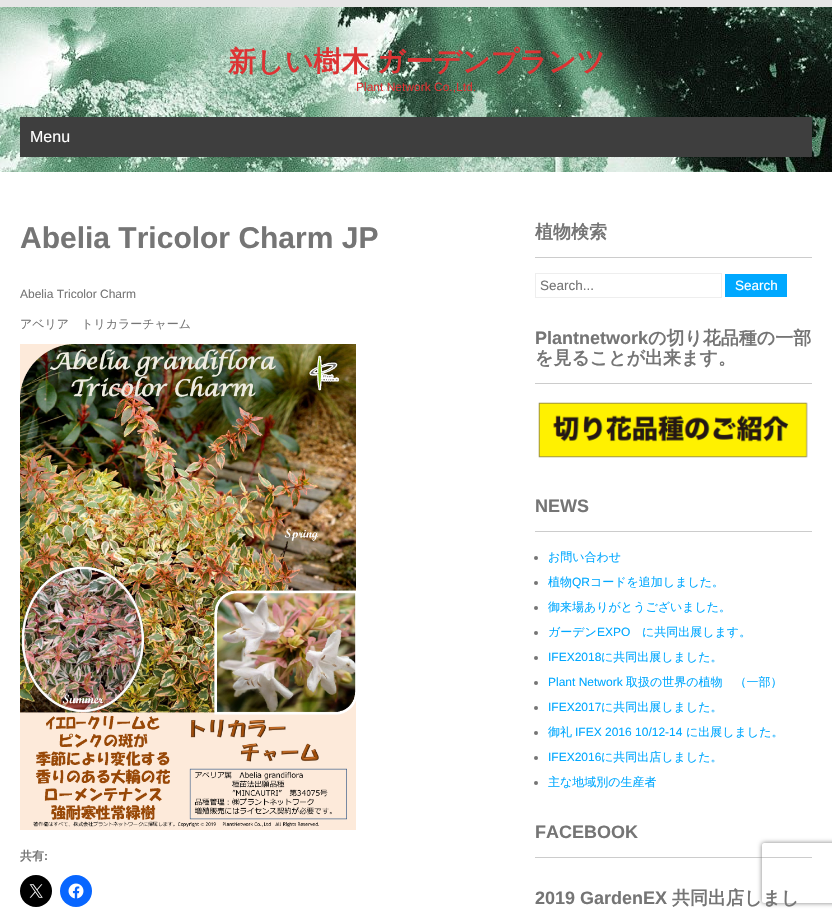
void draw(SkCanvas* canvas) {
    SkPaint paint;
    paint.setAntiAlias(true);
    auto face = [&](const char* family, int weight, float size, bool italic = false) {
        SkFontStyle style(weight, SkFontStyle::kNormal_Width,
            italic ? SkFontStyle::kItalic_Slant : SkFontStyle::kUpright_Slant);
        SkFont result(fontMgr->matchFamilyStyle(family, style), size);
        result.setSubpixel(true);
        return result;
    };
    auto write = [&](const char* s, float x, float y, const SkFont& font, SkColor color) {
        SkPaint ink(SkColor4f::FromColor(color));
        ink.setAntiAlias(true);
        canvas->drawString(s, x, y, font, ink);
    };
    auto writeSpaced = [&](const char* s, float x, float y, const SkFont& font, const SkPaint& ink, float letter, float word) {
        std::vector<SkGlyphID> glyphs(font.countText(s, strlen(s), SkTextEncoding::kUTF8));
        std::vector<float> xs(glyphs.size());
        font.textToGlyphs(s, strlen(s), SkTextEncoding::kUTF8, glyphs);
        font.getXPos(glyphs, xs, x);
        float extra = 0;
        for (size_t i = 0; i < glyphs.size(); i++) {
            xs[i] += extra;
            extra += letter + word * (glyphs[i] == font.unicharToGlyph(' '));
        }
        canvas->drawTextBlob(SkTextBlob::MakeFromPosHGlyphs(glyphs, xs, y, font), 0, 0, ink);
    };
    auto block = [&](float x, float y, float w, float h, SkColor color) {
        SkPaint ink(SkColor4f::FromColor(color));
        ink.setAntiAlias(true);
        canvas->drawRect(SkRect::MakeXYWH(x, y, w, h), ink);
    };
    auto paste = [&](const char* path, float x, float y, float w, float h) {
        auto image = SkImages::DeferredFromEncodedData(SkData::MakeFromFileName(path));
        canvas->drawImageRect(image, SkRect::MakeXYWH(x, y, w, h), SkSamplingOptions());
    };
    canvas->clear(SK_ColorWHITE);
    paste("pic1.png", 0, 7, 832, 165);
    block(0, 0, 832, 7, SkColorSetRGB(230, 230, 230));
    auto kFont1 = face("WenQuanYi Zen Hei", 700, 28);
    paint.setColor(SkColorSetRGB(221, 51, 51));
    writeSpaced("新しい樹木 ガーデンプランツ", 228, 71, kFont1, paint, 0, -1);
    auto kFont2 = face("Liberation Sans", 400, 12);
    write("Plant Network Co.,Ltd.", 356, 91, kFont2, SkColorSetRGB(221, 51, 51));
    block(20, 117, 792, 40, SkColorSetRGB(62, 62, 62));
    auto kFont3 = face("Liberation Sans", 400, 16);
    write("Menu", 30, 142, kFont3, SK_ColorWHITE);
    auto kFont4 = face("Liberation Sans", 700, 30);
    write("Abelia Tricolor Charm JP", 20, 248, kFont4, SkColorSetRGB(117, 117, 117));
    write("Abelia Tricolor Charm", 20, 298, kFont2, SkColorSetRGB(117, 117, 117));
    auto kFont5 = face("WenQuanYi Zen Hei", 500, 12);
    write("アベリア　トリカラーチャーム", 20, 328, kFont5, SkColorSetRGB(117, 117, 117));
    paste("pic2.png", 20, 344, 336, 486);
    auto kFont6 = face("WenQuanYi Zen Hei", 700, 12);
    write("共有", 20, 860, kFont6, SkColorSetRGB(117, 117, 117));
    auto kFont7 = face("Liberation Sans", 700, 12);
    write(":", 44, 860, kFont7, SkColorSetRGB(117, 117, 117));
    paint.setColor(SK_ColorBLACK);
    canvas->drawCircle(36, 891, 16, paint);
    paste("pic3.png", 29, 884, 14, 14);
    paint.setColor(SkColorSetRGB(8, 102, 255));
    canvas->drawCircle(76, 891, 16, paint);
    paste("pic4.png", 68, 883, 16, 16);
    block(535, 257, 277, 1, SkColorSetRGB(204, 204, 204));
    auto kFont8 = face("WenQuanYi Zen Hei", 700, 18);
    write("植物検索", 535, 238, kFont8, SkColorSetRGB(117, 117, 117));
    paint.setStyle(SkPaint::kStroke_Style);
    paint.setStrokeWidth(1);
    paint.setColor(SkColorSetRGB(238, 238, 238));
    canvas->drawRect(SkRect::MakeXYWH(535.5f, 273.5f, 186, 24), paint);
    auto kFont9 = face("Liberation Sans", 400, 13.5f);
    write("Search...", 540, 290, kFont9, SkColorSetRGB(117, 117, 117));
    block(725, 274, 62, 23, SkColorSetRGB(0, 168, 255));
    write("Search", 735, 290, kFont9, SK_ColorWHITE);
    block(535, 383, 277, 1, SkColorSetRGB(204, 204, 204));
    auto kFont10 = face("Liberation Sans", 700, 18);
    write("Plantnetwork", 535, 344, kFont10, SkColorSetRGB(117, 117, 117));
    write("の切り花品種の一部", 648, 344, kFont8, SkColorSetRGB(117, 117, 117));
    write("を見ることが出来ます。", 535, 364, kFont8, SkColorSetRGB(117, 117, 117));
    paste("pic5.png", 538, 402, 270, 56);
    block(535, 531, 277, 1, SkColorSetRGB(204, 204, 204));
    write("NEWS", 535, 512, kFont10, SkColorSetRGB(117, 117, 117));
    paint.setStyle(SkPaint::kFill_Style);
    paint.setColor(SkColorSetRGB(117, 117, 117));
    canvas->drawCircle(536, 558, 2, paint);
    write("お問い合わせ", 548, 561, kFont5, SkColorSetRGB(0, 168, 255));
    canvas->drawCircle(536, 583, 2, paint);
    write("植物", 548, 586, kFont5, SkColorSetRGB(0, 168, 255));
    write("QR", 572, 586, kFont2, SkColorSetRGB(0, 168, 255));
    write("コードを追加しました。", 590, 586, kFont5, SkColorSetRGB(0, 168, 255));
    canvas->drawCircle(536, 608, 2, paint);
    write("御来場ありがとうございました。", 548, 611, kFont5, SkColorSetRGB(0, 168, 255));
    canvas->drawCircle(536, 633, 2, paint);
    write("ガーデン", 548, 636, kFont5, SkColorSetRGB(0, 168, 255));
    write("EXPO", 597, 636, kFont2, SkColorSetRGB(0, 168, 255));
    write("に共同出展します。", 642, 636, kFont5, SkColorSetRGB(0, 168, 255));
    canvas->drawCircle(536, 658, 2, paint);
    write("IFEX2018", 548, 661, kFont2, SkColorSetRGB(0, 168, 255));
    write("に共同出展しました。", 601, 661, kFont5, SkColorSetRGB(0, 168, 255));
    canvas->drawCircle(536, 683, 2, paint);
    write("Plant Network", 548, 686, kFont2, SkColorSetRGB(0, 168, 255));
    write("取扱の世界の植物　（一部）", 626, 686, kFont5, SkColorSetRGB(0, 168, 255));
    canvas->drawCircle(536, 708, 2, paint);
    write("IFEX2017", 548, 711, kFont2, SkColorSetRGB(0, 168, 255));
    write("に共同出展しました。", 601, 711, kFont5, SkColorSetRGB(0, 168, 255));
    canvas->drawCircle(536, 733, 2, paint);
    write("御礼", 548, 736, kFont5, SkColorSetRGB(0, 168, 255));
    write("IFEX 2016 10/12-14", 575, 736, kFont2, SkColorSetRGB(0, 168, 255));
    write("に出展しました。", 686, 736, kFont5, SkColorSetRGB(0, 168, 255));
    canvas->drawCircle(536, 758, 2, paint);
    write("IFEX2016", 548, 761, kFont2, SkColorSetRGB(0, 168, 255));
    write("に共同出店しました。", 601, 761, kFont5, SkColorSetRGB(0, 168, 255));
    canvas->drawCircle(536, 783, 2, paint);
    write("主な地域別の生産者", 548, 786, kFont5, SkColorSetRGB(0, 168, 255));
    block(535, 857, 277, 1, SkColorSetRGB(204, 204, 204));
    write("FACEBOOK", 535, 838, kFont10, SkColorSetRGB(117, 117, 117));
    write("2019 GardenEX", 535, 904, kFont10, SkColorSetRGB(117, 117, 117));
    write("共同出店しまし", 672, 904, kFont8, SkColorSetRGB(117, 117, 117));
    canvas->save();
    canvas->clipPath(SkPathBuilder(SkPathFillType::kEvenOdd).moveTo(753, 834).lineTo(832, 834).lineTo(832, 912).lineTo(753, 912).close().moveTo(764, 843).lineTo(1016, 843).cubicTo(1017, 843, 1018, 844, 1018, 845).lineTo(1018, 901).cubicTo(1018, 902, 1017, 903, 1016, 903).lineTo(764, 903).cubicTo(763, 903, 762, 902, 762, 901).lineTo(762, 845).cubicTo(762, 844, 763, 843, 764, 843).close().detach(), true);
    paint.setColor(SkColorSetRGB(128, 128, 128));
    paint.setMaskFilter(SkMaskFilter::MakeBlur(kNormal_SkBlurStyle, 2.5f));
    canvas->drawRoundRect(SkRect::MakeXYWH(762, 843, 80, 60), 2, 2, paint);
    paint.setMaskFilter(nullptr);
    canvas->restore();
}
